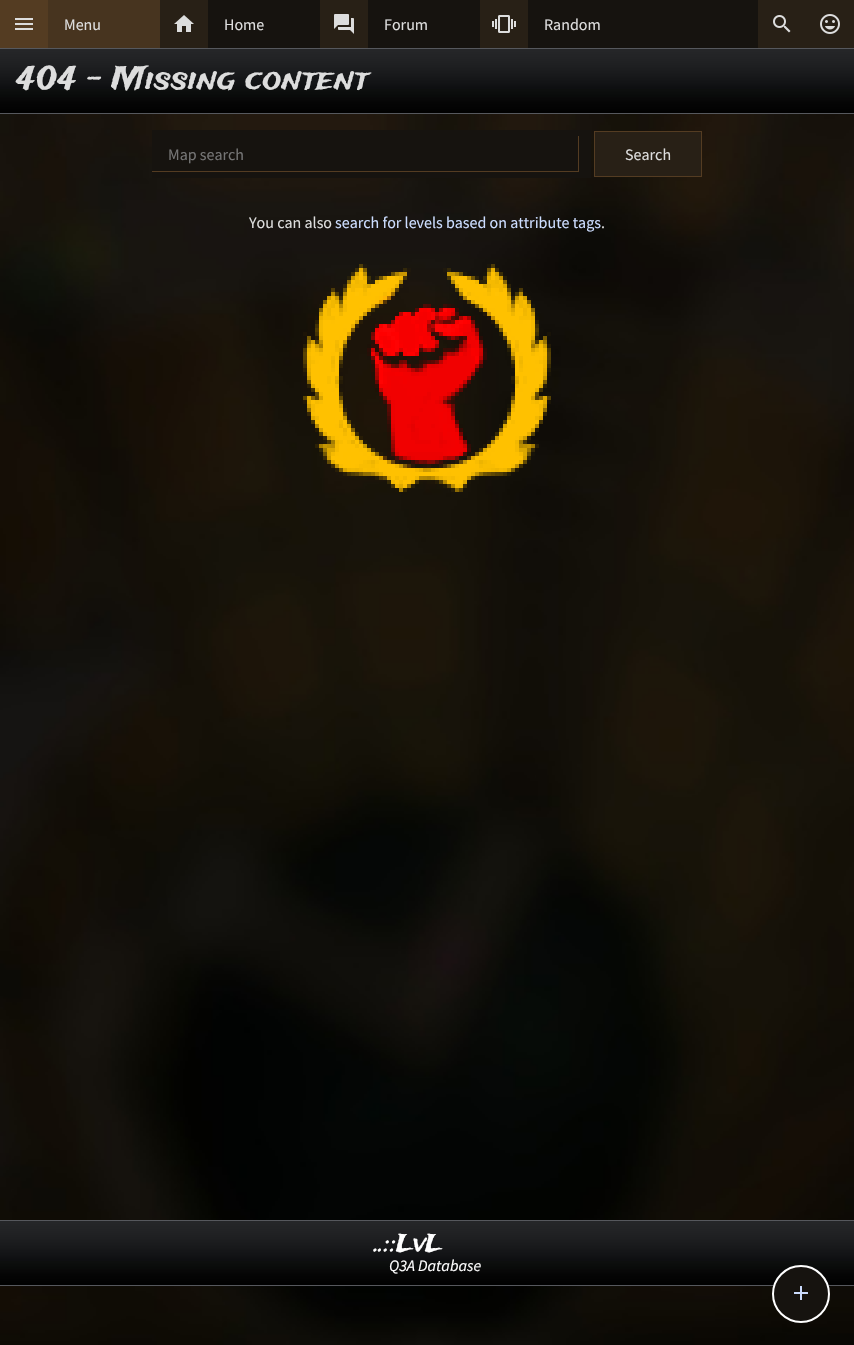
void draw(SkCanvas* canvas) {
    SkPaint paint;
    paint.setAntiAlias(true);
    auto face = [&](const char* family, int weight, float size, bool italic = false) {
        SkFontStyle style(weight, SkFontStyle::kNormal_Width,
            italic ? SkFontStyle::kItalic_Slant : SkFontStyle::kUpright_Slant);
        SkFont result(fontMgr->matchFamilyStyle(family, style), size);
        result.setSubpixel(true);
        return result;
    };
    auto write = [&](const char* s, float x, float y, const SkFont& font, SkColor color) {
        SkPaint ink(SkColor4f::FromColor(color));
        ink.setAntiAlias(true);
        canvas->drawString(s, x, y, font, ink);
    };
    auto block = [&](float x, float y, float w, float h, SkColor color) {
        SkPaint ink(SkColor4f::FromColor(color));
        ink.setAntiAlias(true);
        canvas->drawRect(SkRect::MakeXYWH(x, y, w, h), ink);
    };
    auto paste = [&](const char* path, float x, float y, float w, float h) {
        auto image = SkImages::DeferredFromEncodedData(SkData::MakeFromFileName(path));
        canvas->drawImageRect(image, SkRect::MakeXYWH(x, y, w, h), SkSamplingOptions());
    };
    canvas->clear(SK_ColorWHITE);
    block(208, 0, 550, 48, SkColorSetRGB(22, 19, 15));
    block(0, 0, 48, 48, SkColorSetRGB(84, 60, 34));
    paste("pic1.png", 15, 18, 18, 12);
    block(48, 0, 112, 48, SkColorSetRGB(71, 52, 31));
    auto kFont1 = face("Source Sans Pro", 400, 16);
    write("Menu", 64, 30, kFont1, SkColorSetRGB(221, 221, 221));
    block(160, 0, 48, 48, SkColorSetRGB(40, 32, 22));
    paste("pic2.png", 174, 15, 20, 17);
    write("Home", 224, 30, kFont1, SkColorSetRGB(221, 221, 221));
    block(320, 0, 48, 48, SkColorSetRGB(40, 32, 22));
    paste("pic3.png", 334, 14, 20, 20);
    write("Forum", 384, 30, kFont1, SkColorSetRGB(221, 221, 221));
    block(480, 0, 48, 48, SkColorSetRGB(40, 32, 22));
    paste("pic4.png", 492, 15, 24, 18);
    write("Random", 544, 30, kFont1, SkColorSetRGB(221, 221, 221));
    block(758, 0, 96, 48, SkColorSetRGB(40, 32, 22));
    paste("pic5.png", 773, 15, 18, 18);
    paste("pic6.png", 820, 14, 20, 20);
    paste("pic7.png", 0, 49, 854, 64);
    block(0, 48, 854, 1, SkColorSetRGB(86, 88, 93));
    block(0, 113, 854, 1, SkColorSetRGB(86, 88, 93));
    auto kFont2 = face("Trade Winds", 400, 32);
    write("404 - Missing content", 16, 89, kFont2, SkColorSetRGB(221, 221, 221));
    paste("pic8.png", 0, 114, 854, 1231);
    block(152, 130, 439, 48, SkColorSetRGB(22, 19, 15));
    block(578, 136, 1, 36, SkColorSetRGB(84, 60, 34));
    block(152, 171, 427, 1, SkColorSetRGB(84, 60, 34));
    write("Map search", 168, 160, kFont1, SkColorSetRGB(117, 117, 117));
    paint.setColor(SkColorSetRGB(40, 32, 22));
    canvas->drawRect(SkRect::MakeXYWH(594.5f, 131.5f, 107, 45), paint);
    paint.setStyle(SkPaint::kStroke_Style);
    paint.setStrokeWidth(1);
    paint.setColor(SkColorSetRGB(84, 60, 34));
    canvas->drawRect(SkRect::MakeXYWH(594.5f, 131.5f, 107, 45), paint);
    write("Search", 625, 160, kFont1, SkColorSetRGB(221, 221, 221));
    write("You can also", 249, 228, kFont1, SkColorSetRGB(221, 221, 221));
    write("search for levels based on attribute tags", 335, 228, kFont1, SkColorSetRGB(204, 221, 255));
    write(".", 601, 228, kFont1, SkColorSetRGB(221, 221, 221));
    paste("pic9.png", 303, 264, 248, 228);
    paste("pic7.png", 0, 1221, 854, 64);
    block(0, 1285, 854, 1, SkColorSetRGB(86, 88, 93));
    paint.setStyle(SkPaint::kFill_Style);
    paint.setColor(SkColorSetRGB(22, 19, 15));
    canvas->drawCircle(801, 1294, 28, paint);
    paint.setStyle(SkPaint::kStroke_Style);
    paint.setStrokeWidth(2);
    paint.setColor(SK_ColorWHITE);
    canvas->drawCircle(801, 1294, 28, paint);
    paste("pic10.png", 794, 1286, 14, 14);
    block(0, 1220, 854, 1, SkColorSetRGB(86, 88, 93));
    auto kFont3 = face("Trade Winds", 400, 24);
    write("..::LvL", 375, 1251, kFont3, SK_ColorWHITE);
    auto kFont4 = face("Source Sans Pro", 400, 16, true);
    write("Q3A Database", 389, 1271, kFont4, SK_ColorWHITE);
}
